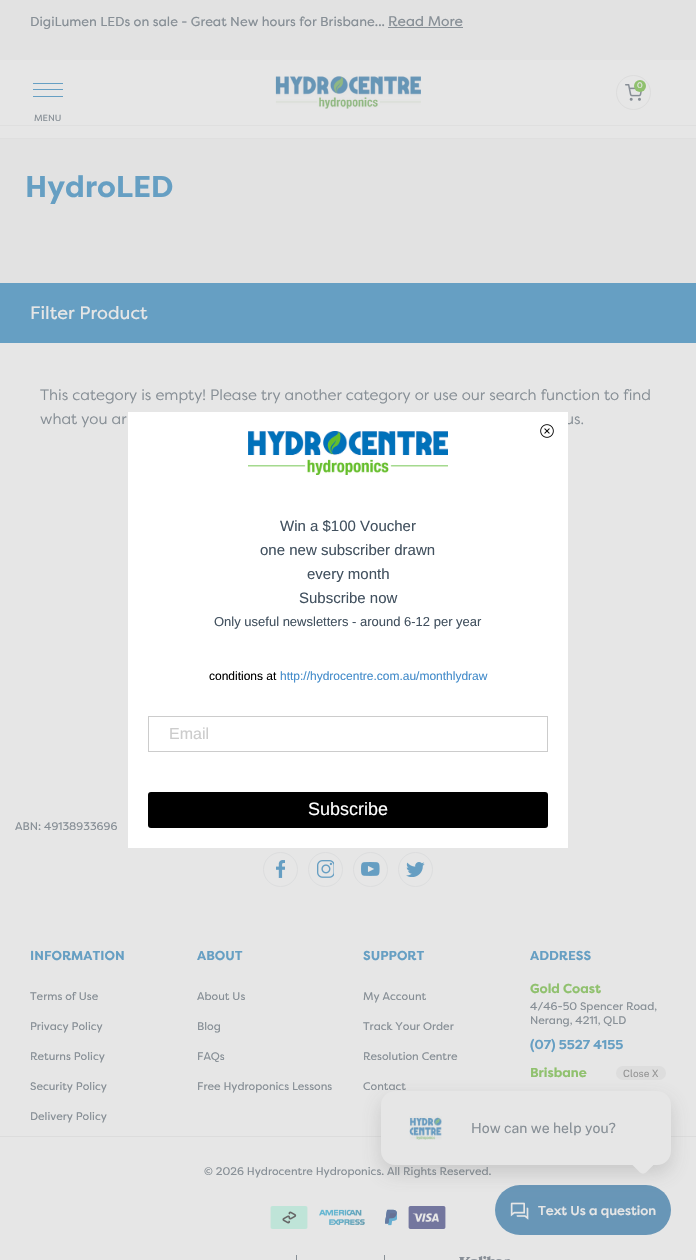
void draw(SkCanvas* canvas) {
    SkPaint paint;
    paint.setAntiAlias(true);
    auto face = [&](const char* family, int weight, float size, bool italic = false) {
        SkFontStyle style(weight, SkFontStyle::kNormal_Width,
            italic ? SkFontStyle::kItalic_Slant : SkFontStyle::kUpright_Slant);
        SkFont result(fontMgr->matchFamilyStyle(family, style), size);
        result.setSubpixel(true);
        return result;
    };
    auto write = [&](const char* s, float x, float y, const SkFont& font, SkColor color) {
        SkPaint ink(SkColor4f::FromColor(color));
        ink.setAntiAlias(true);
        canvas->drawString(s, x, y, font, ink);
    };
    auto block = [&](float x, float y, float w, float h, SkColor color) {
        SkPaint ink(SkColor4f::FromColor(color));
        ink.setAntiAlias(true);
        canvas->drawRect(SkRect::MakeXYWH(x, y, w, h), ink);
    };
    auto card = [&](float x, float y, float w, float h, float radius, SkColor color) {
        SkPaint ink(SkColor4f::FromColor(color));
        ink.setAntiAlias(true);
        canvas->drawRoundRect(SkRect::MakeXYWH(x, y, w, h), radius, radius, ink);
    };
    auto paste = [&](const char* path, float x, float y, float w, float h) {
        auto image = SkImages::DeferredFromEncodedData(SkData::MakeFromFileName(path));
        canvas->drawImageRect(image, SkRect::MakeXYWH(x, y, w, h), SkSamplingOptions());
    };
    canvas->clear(SkColorSetRGB(230, 230, 230));
    block(0, 125, 696, 1, SkColorSetRGB(223, 223, 223));
    block(0, 0, 696, 60, SkColorSetRGB(226, 226, 226));
    auto kFont1 = face("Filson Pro", 400, 13);
    write("DigiLumen LEDs on sale - Great New hours for Brisbane...", 30, 26, kFont1, SkColorSetRGB(135, 143, 150));
    auto kFont2 = face("Filson Pro", 400, 14);
    write("Read More", 388, 26, kFont2, SkColorSetRGB(135, 143, 150));
    block(388, 27, 75, 1, SkColorSetRGB(135, 143, 150));
    paste("pic1.png", 275, 76, 146, 33);
    paint.setStyle(SkPaint::kStroke_Style);
    paint.setStrokeWidth(1);
    paint.setColor(SkColorSetRGB(220, 220, 220));
    canvas->drawCircle(633.5f, 92.5f, 17, paint);
    paste("pic2.png", 625, 84, 17, 17);
    paint.setStyle(SkPaint::kFill_Style);
    paint.setColor(SkColorSetRGB(144, 193, 110));
    canvas->drawCircle(640, 86, 6, paint);
    auto kFont3 = face("Filson Pro", 400, 8);
    write("0", 637, 88, kFont3, SkColorSetRGB(230, 230, 230));
    block(33, 96, 30, 1, SkColorSetRGB(102, 159, 195));
    block(33, 83, 30, 1, SkColorSetRGB(102, 159, 195));
    block(33, 89, 30, 1, SkColorSetRGB(102, 159, 195));
    auto kFont4 = face("Filson Pro", 400, 9);
    write("MENU", 34, 121, kFont4, SkColorSetRGB(135, 143, 150));
    block(0, 138, 696, 1, SkColorSetRGB(223, 223, 223));
    block(0, 139, 696, 144, SkColorSetRGB(226, 226, 226));
    auto kFont5 = face("Filson Pro", 700, 30);
    write("HydroLED", 25, 197, kFont5, SkColorSetRGB(102, 159, 195));
    block(0, 283, 696, 60, SkColorSetRGB(102, 159, 195));
    auto kFont6 = face("Filson Pro", 400, 18);
    write("Filter Product", 30, 319, kFont6, SkColorSetRGB(230, 230, 230));
    auto kFont7 = face("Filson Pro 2", 400, 15);
    write("This category is empty! Please try another category or use our search function to find", 40, 400, kFont7, SkColorSetRGB(135, 143, 150));
    write("what you ar", 40, 424, kFont7, SkColorSetRGB(135, 143, 150));
    write("us.", 565, 424, kFont7, SkColorSetRGB(135, 143, 150));
    block(128, 412, 440, 436, SK_ColorWHITE);
    paste("pic3.png", 540, 424, 14, 14);
    paste("pic4.png", 248, 431, 200, 44);
    auto kFont8 = face("Liberation Sans", 400, 15);
    write("Win a $100 Voucher", 280, 531, kFont8, SkColorSetRGB(66, 81, 95));
    write("one new subscriber drawn", 260, 555, kFont8, SkColorSetRGB(66, 81, 95));
    write("every month", 307, 579, kFont8, SkColorSetRGB(66, 81, 95));
    write("Subscribe now", 299, 603, kFont8, SkColorSetRGB(66, 81, 95));
    auto kFont9 = face("Liberation Sans", 400, 13);
    write("Only useful newsletters - around 6-12 per year", 214, 626, kFont9, SkColorSetRGB(66, 81, 95));
    auto kFont10 = face("Liberation Sans", 400, 12);
    write("conditions at", 209, 680, kFont10, SK_ColorBLACK);
    write("http://hydrocentre.com.au/monthlydraw", 280, 680, kFont10, SkColorSetRGB(66, 139, 202));
    paint.setStyle(SkPaint::kStroke_Style);
    paint.setColor(SkColorSetRGB(204, 204, 204));
    canvas->drawRect(SkRect::MakeXYWH(148.5f, 716.5f, 399, 35), paint);
    auto kFont11 = face("Liberation Sans", 400, 16);
    write("Email", 169, 739, kFont11, SkColorSetRGB(204, 204, 204));
    card(148, 792, 400, 36, 3, SK_ColorBLACK);
    auto kFont12 = face("Liberation Sans", 400, 18);
    write("Subscribe", 308, 815, kFont12, SK_ColorWHITE);
    auto kFont13 = face("Filson Pro", 400, 11);
    write("ABN: 49138933696", 15, 830, kFont13, SkColorSetRGB(135, 143, 150));
    paint.setColor(SkColorSetRGB(220, 221, 222));
    canvas->drawCircle(280.5f, 869.5f, 17, paint);
    paste("pic5.png", 276, 860, 9, 18);
    canvas->drawCircle(325.5f, 869.5f, 17, paint);
    paste("pic6.png", 317, 860, 17, 18);
    canvas->drawCircle(370.5f, 869.5f, 17, paint);
    paste("pic7.png", 361, 862, 19, 14);
    canvas->drawCircle(415.5f, 869.5f, 17, paint);
    paste("pic8.png", 406, 862, 19, 15);
    auto kFont14 = face("Filson Pro", 700, 13);
    write("INFORMATION", 30, 960, kFont14, SkColorSetRGB(102, 159, 195));
    write("Terms of Use", 30, 1000, kFont13, SkColorSetRGB(135, 143, 150));
    write("Privacy Policy", 30, 1030, kFont13, SkColorSetRGB(135, 143, 150));
    write("Returns Policy", 30, 1060, kFont13, SkColorSetRGB(135, 143, 150));
    write("Security Policy", 30, 1090, kFont13, SkColorSetRGB(135, 143, 150));
    write("Delivery Policy", 30, 1120, kFont13, SkColorSetRGB(135, 143, 150));
    write("ABOUT", 197, 960, kFont14, SkColorSetRGB(102, 159, 195));
    write("About Us", 197, 1000, kFont13, SkColorSetRGB(135, 143, 150));
    write("Blog", 197, 1030, kFont13, SkColorSetRGB(135, 143, 150));
    write("FAQs", 197, 1060, kFont13, SkColorSetRGB(135, 143, 150));
    write("Free Hydroponics Lessons", 197, 1090, kFont13, SkColorSetRGB(135, 143, 150));
    write("SUPPORT", 363, 960, kFont14, SkColorSetRGB(102, 159, 195));
    write("My Account", 363, 1000, kFont13, SkColorSetRGB(135, 143, 150));
    write("Track Your Order", 363, 1030, kFont13, SkColorSetRGB(135, 143, 150));
    write("Resolution Centre", 363, 1060, kFont13, SkColorSetRGB(135, 143, 150));
    write("Contact", 363, 1090, kFont13, SkColorSetRGB(135, 143, 150));
    write("ADDRESS", 530, 960, kFont14, SkColorSetRGB(102, 159, 195));
    write("Gold Coast", 530, 993, kFont14, SkColorSetRGB(144, 193, 110));
    write("4/46-50 Spencer Road,", 530, 1010, kFont13, SkColorSetRGB(135, 143, 150));
    write("Nerang, 4211, QLD", 530, 1024, kFont13, SkColorSetRGB(135, 143, 150));
    write("(07) 5527 4155", 530, 1049, kFont14, SkColorSetRGB(102, 159, 195));
    write("Brisbane", 530, 1077, kFont14, SkColorSetRGB(144, 193, 110));
    block(0, 1136, 696, 1, SkColorSetRGB(220, 220, 220));
    write("© 2026 Hydrocentre Hydroponics. All Rights Reserved.", 204, 1175, kFont13, SkColorSetRGB(135, 143, 150));
    paste("pic9.png", 270, 1206, 38, 23);
    paste("pic10.png", 319, 1209, 46, 16);
    paste("pic11.png", 385, 1209, 12, 17);
    paste("pic12.png", 408, 1206, 38, 23);
    block(296, 1255, 1, 5, SkColorSetRGB(135, 143, 150));
    block(384, 1255, 1, 5, SkColorSetRGB(135, 143, 150));
    paste("pic13.png", 459, 1256, 52, 4);
    card(495, 1185, 176, 50, 25, SkColorSetRGB(104, 150, 183));
    paste("pic15.png", 510, 1202, 19, 18);
    paint.setStyle(SkPaint::kFill_Style);
    paint.setColor(SkColorSetARGB(61, 102, 102, 102));
    paint.setMaskFilter(SkMaskFilter::MakeBlur(kNormal_SkBlurStyle, 10));
    canvas->drawRoundRect(SkRect::MakeXYWH(381, 1099, 290, 74), 14, 14, paint);
    paint.setMaskFilter(nullptr);
    card(381, 1091, 290, 74, 14, SkColorSetRGB(230, 230, 230));
    card(616, 1066, 50, 14, 7, SkColorSetRGB(221, 221, 221));
    auto kFont15 = face("Public Sans", 100, 10);
    write("Close X", 623, 1077, kFont15, SkColorSetRGB(149, 149, 149));
    paste("pic14.png", 409, 1116, 33, 24);
    auto kFont16 = face("Public Sans", 100, 14);
    write("How can we help you?", 471, 1133, kFont16, SkColorSetRGB(135, 143, 150));
    paint.setColor(SkColorSetRGB(230, 230, 230));
    canvas->drawPath(SkPathBuilder().moveTo(646, 1149.5f).lineTo(654.5f, 1158).cubicTo(656, 1159.5f, 656, 1162.5f, 654.5f, 1164).lineTo(646, 1172.5f).cubicTo(644.5f, 1174, 641.5f, 1174, 640, 1172.5f).lineTo(631.5f, 1164).cubicTo(630, 1162.5f, 630, 1159.5f, 631.5f, 1158).lineTo(640, 1149.5f).cubicTo(641.5f, 1148, 644.5f, 1148, 646, 1149.5f).close().detach(), paint);
    auto kFont17 = face("Filson Pro", 500, 13);
    write("Text Us a question", 538, 1215, kFont17, SkColorSetRGB(230, 230, 230));
}
